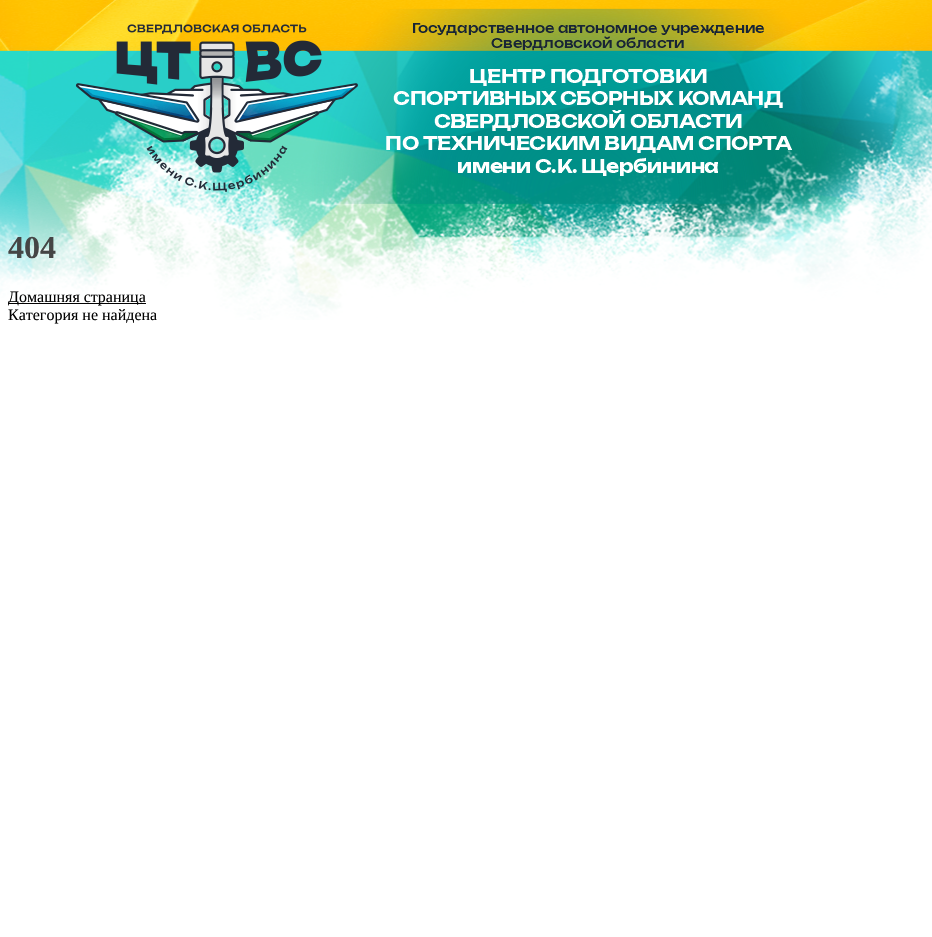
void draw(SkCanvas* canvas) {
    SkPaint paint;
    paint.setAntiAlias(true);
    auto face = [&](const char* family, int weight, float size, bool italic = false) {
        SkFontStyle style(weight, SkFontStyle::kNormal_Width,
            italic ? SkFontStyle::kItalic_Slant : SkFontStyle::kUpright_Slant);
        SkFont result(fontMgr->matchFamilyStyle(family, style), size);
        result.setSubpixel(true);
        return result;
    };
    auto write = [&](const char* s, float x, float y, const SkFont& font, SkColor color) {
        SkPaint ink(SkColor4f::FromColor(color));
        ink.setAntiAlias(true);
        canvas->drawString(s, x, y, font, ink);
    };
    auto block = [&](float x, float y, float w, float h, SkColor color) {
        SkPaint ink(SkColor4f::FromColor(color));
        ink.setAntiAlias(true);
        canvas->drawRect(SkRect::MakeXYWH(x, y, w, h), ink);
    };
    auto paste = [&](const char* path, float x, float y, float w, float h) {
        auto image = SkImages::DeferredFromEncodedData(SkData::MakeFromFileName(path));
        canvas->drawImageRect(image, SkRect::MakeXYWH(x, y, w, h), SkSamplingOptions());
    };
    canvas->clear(SK_ColorWHITE);
    paste("pic1.png", 0, 0, 932, 320);
    paste("pic2.png", 75, 8, 771, 196);
    auto kFont1 = face("Liberation Serif", 700, 32);
    write("404", 8, 258, kFont1, SkColorSetRGB(69, 69, 69));
    block(8, 303, 138, 1, SkColorSetRGB(3, 3, 3));
    auto kFont2 = face("Liberation Serif", 400, 16);
    write("Домашняя страница", 8, 302, kFont2, SkColorSetRGB(3, 3, 3));
    write("Категория не найдена", 8, 320, kFont2, SkColorSetRGB(3, 3, 3));
}
